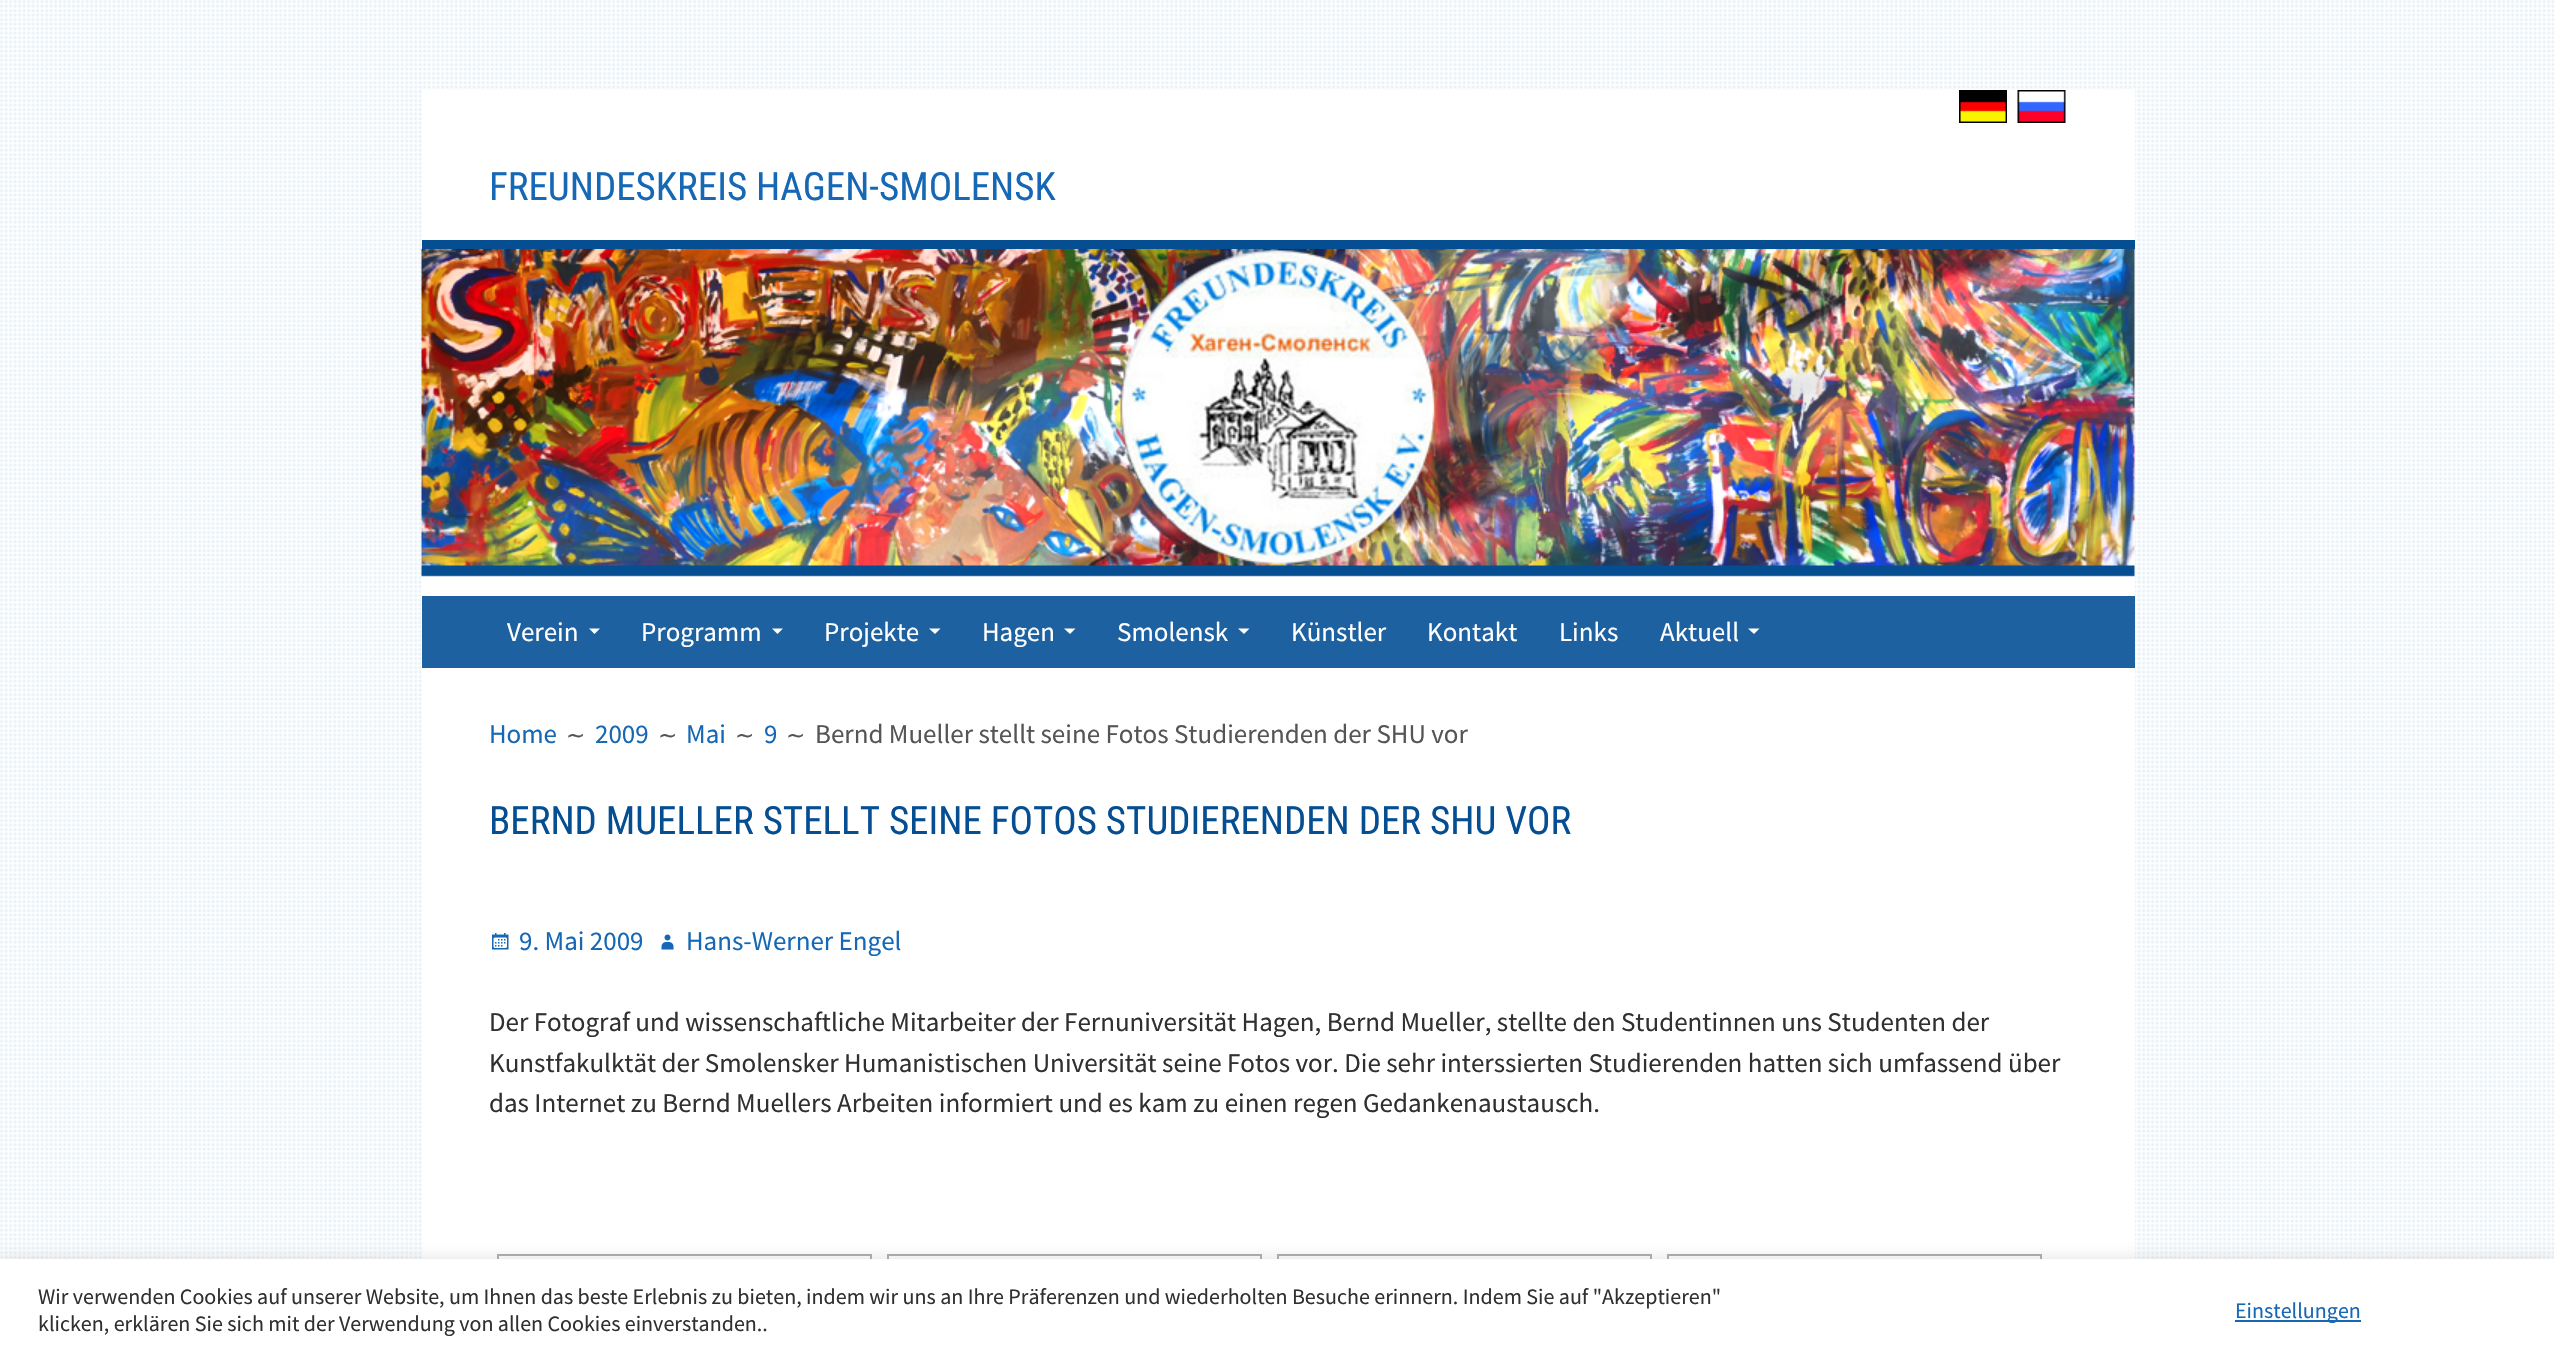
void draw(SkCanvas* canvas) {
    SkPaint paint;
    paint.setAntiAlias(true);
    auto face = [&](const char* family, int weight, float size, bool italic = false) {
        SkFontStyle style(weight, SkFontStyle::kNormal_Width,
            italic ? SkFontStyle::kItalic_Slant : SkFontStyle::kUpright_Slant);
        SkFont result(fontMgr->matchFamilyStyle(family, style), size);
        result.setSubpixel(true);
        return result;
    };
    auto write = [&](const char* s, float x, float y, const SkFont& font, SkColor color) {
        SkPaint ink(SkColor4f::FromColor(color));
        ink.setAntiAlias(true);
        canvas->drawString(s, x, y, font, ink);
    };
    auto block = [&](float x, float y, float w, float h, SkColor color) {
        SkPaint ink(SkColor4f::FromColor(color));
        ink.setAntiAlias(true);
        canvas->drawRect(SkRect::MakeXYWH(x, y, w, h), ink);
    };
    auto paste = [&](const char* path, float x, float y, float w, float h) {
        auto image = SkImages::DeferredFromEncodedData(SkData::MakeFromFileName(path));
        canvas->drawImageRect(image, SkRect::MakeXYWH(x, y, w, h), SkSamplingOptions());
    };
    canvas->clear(SK_ColorWHITE);
    paste("pic1.png", 0, 0, 2554, 1259);
    block(422, 90, 1713, 150, SK_ColorWHITE);
    paste("pic2.png", 1959, 90, 48, 33);
    paste("pic3.png", 2017, 90, 49, 33);
    auto kFont1 = face("Roboto Condensed", 400, 39);
    write("FREUNDESKREIS HAGEN-SMOLENSK", 489, 200, kFont1, SkColorSetRGB(22, 104, 181));
    block(2134, 249, 1, 347, SK_ColorWHITE);
    block(422, 240, 1713, 9, SkColorSetRGB(5, 78, 146));
    paste("pic4.png", 421, 249, 1714, 419);
    block(422, 596, 1713, 72, SkColorSetARGB(235, 11, 84, 152));
    auto kFont2 = face("Source Sans Pro", 400, 27);
    write("Verein", 507, 641, kFont2, SK_ColorWHITE);
    paint.setColor(SK_ColorWHITE);
    canvas->drawPath(SkPathBuilder().moveTo(589, 628.5f).lineTo(600, 628.5f).lineTo(594.5f, 634).close().detach(), paint);
    write("Programm", 641, 641, kFont2, SK_ColorWHITE);
    canvas->drawPath(SkPathBuilder().moveTo(772, 628.5f).lineTo(783, 628.5f).lineTo(777.5f, 634).close().detach(), paint);
    write("Projekte", 824, 641, kFont2, SK_ColorWHITE);
    canvas->drawPath(SkPathBuilder().moveTo(929, 628.5f).lineTo(940.5f, 628.5f).lineTo(935, 634).close().detach(), paint);
    write("Hagen", 982, 641, kFont2, SK_ColorWHITE);
    canvas->drawPath(SkPathBuilder().moveTo(1064, 628.5f).lineTo(1075.5f, 628.5f).lineTo(1070, 634).close().detach(), paint);
    write("Smolensk", 1117, 641, kFont2, SK_ColorWHITE);
    canvas->drawPath(SkPathBuilder().moveTo(1238, 628.5f).lineTo(1249.5f, 628.5f).lineTo(1244, 634).close().detach(), paint);
    write("Künstler", 1291, 641, kFont2, SK_ColorWHITE);
    write("Kontakt", 1427, 641, kFont2, SK_ColorWHITE);
    write("Links", 1559, 641, kFont2, SK_ColorWHITE);
    write("Aktuell", 1660, 641, kFont2, SK_ColorWHITE);
    canvas->drawPath(SkPathBuilder().moveTo(1748, 628.5f).lineTo(1759.5f, 628.5f).lineTo(1754, 634).close().detach(), paint);
    block(422, 668, 1713, 591, SK_ColorWHITE);
    write("Home", 489, 743, kFont2, SkColorSetRGB(22, 104, 181));
    auto kFont3 = face("DejaVu Sans", 400, 23);
    write("∼", 566, 743, kFont3, SkColorSetRGB(85, 85, 85));
    write("2009", 595, 743, kFont2, SkColorSetRGB(22, 104, 181));
    write("∼", 658, 743, kFont3, SkColorSetRGB(85, 85, 85));
    write("Mai", 686, 743, kFont2, SkColorSetRGB(22, 104, 181));
    write("∼", 735, 743, kFont3, SkColorSetRGB(85, 85, 85));
    write("9", 764, 743, kFont2, SkColorSetRGB(22, 104, 181));
    write("∼", 786, 743, kFont3, SkColorSetRGB(85, 85, 85));
    write("Bernd Mueller stellt seine Fotos Studierenden der SHU vor", 815, 743, kFont2, SkColorSetRGB(85, 85, 85));
    write("BERND MUELLER STELLT SEINE FOTOS STUDIERENDEN DER SHU VOR", 489, 834, kFont1, SkColorSetRGB(5, 78, 146));
    paste("pic5.png", 492, 933, 17, 17);
    write("9. Mai 2009", 519, 950, kFont2, SkColorSetRGB(22, 104, 181));
    paste("pic6.png", 661, 934, 13, 16);
    write("Hans-Werner Engel", 686, 950, kFont2, SkColorSetRGB(22, 104, 181));
    write("Der Fotograf und wissenschaftliche Mitarbeiter der Fernuniversität Hagen, Bernd Mueller, stellte den Studentinnen uns Studenten der", 489, 1031, kFont2, SkColorSetRGB(48, 48, 48));
    write("Kunstfakulktät der Smolensker Humanistischen Universität seine Fotos vor. Die sehr interssierten Studierenden hatten sich umfassend über", 489, 1072, kFont2, SkColorSetRGB(48, 48, 48));
    write("das Internet zu Bernd Muellers Arbeiten informiert und es kam zu einen regen Gedankenaustausch.", 489, 1112, kFont2, SkColorSetRGB(48, 48, 48));
    paint.setStyle(SkPaint::kStroke_Style);
    paint.setStrokeWidth(2);
    paint.setColor(SkColorSetRGB(169, 169, 169));
    canvas->drawRect(SkRect::MakeXYWH(498, 1255, 373, 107), paint);
    canvas->drawRect(SkRect::MakeXYWH(888, 1255, 373, 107), paint);
    canvas->drawRect(SkRect::MakeXYWH(1278, 1255, 373, 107), paint);
    canvas->drawRect(SkRect::MakeXYWH(1668, 1255, 373, 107), paint);
    paint.setStyle(SkPaint::kFill_Style);
    paint.setColor(SkColorSetARGB(77, 172, 171, 171));
    paint.setMaskFilter(SkMaskFilter::MakeBlur(kNormal_SkBlurStyle, 7.5f));
    canvas->drawRect(SkRect::MakeXYWH(0, 1257, 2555, 104), paint);
    paint.setMaskFilter(nullptr);
    block(0, 1259, 2554, 102, SK_ColorWHITE);
    auto kFont4 = face("Source Sans Pro", 400, 22);
    write("Wir verwenden Cookies auf unserer Website, um Ihnen das beste Erlebnis zu bieten, indem wir uns an Ihre Präferenzen und wiederholten Besuche erinnern. Indem Sie auf \"Akzeptieren\"", 38, 1304, kFont4, SkColorSetRGB(48, 48, 48));
    write("klicken, erklären Sie sich mit der Verwendung von allen Cookies einverstanden..", 38, 1331, kFont4, SkColorSetRGB(48, 48, 48));
    block(2235, 1320, 126, 2, SkColorSetRGB(22, 104, 181));
    write("Einstellungen", 2235, 1318, kFont4, SkColorSetRGB(22, 104, 181));
}
